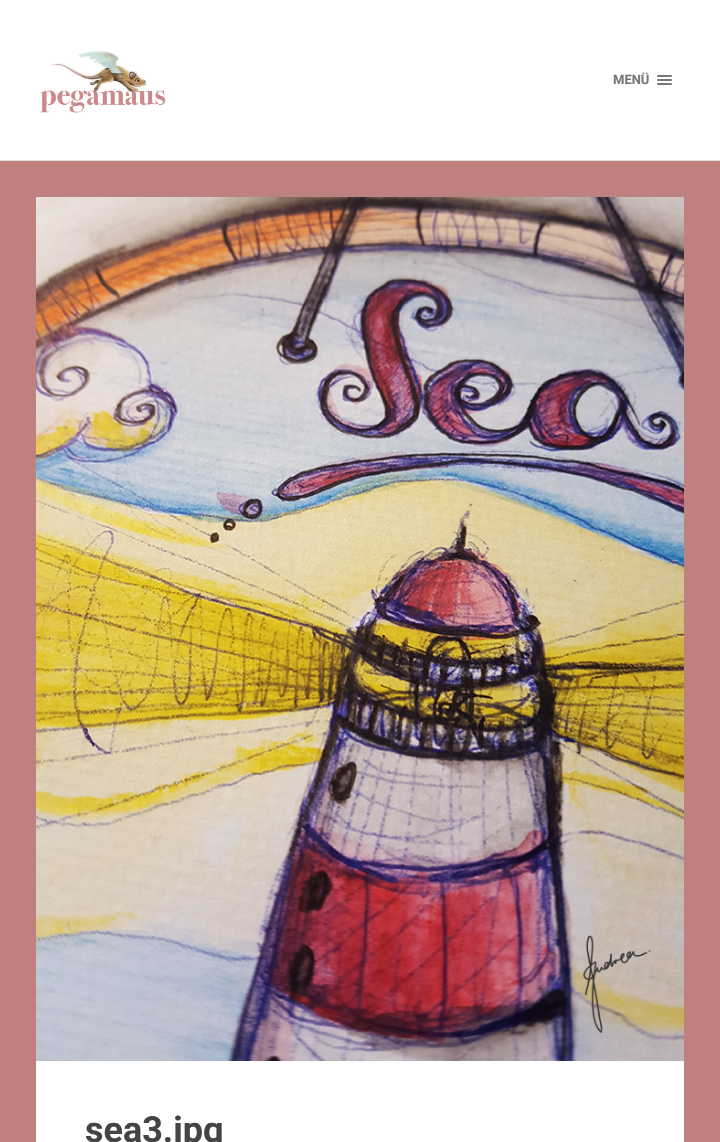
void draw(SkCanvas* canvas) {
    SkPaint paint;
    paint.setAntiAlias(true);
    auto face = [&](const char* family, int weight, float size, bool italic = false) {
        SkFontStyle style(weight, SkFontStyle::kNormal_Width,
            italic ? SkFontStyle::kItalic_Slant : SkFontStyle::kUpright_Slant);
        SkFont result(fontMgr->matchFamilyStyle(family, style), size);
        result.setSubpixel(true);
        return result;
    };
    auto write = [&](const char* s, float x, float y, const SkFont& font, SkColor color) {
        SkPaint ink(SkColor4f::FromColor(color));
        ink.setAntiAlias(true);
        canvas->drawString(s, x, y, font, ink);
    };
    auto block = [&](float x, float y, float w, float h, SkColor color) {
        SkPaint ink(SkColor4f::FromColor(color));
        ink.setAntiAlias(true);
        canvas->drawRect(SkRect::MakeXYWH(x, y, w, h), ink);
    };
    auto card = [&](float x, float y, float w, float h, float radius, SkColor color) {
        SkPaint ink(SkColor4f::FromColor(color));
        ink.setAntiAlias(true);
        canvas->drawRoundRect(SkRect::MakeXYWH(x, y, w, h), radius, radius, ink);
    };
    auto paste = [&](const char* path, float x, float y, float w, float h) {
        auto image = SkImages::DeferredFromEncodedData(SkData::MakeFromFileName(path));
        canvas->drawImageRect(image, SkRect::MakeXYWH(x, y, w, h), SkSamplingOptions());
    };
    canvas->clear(SkColorSetRGB(190, 129, 128));
    block(0, 0, 720, 160, SK_ColorWHITE);
    block(0, 160, 720, 1, SkColorSetRGB(221, 221, 221));
    paste("pic1.png", 40, 50, 126, 63);
    auto kFont1 = face("Roboto", 700, 13);
    write("MENÜ", 613, 84, kFont1, SkColorSetRGB(118, 118, 118));
    card(657, 75, 15, 2, 1, SkColorSetRGB(118, 118, 118));
    card(657, 79, 15, 2, 1, SkColorSetRGB(118, 118, 118));
    card(657, 83, 15, 2, 1, SkColorSetRGB(118, 118, 118));
    block(36, 1061, 648, 81, SK_ColorWHITE);
    paste("pic2.png", 36, 197, 648, 864);
    auto kFont2 = face("Roboto", 700, 36);
    write("sea3.jpg", 85, 1142, kFont2, SkColorSetRGB(68, 68, 68));
}
